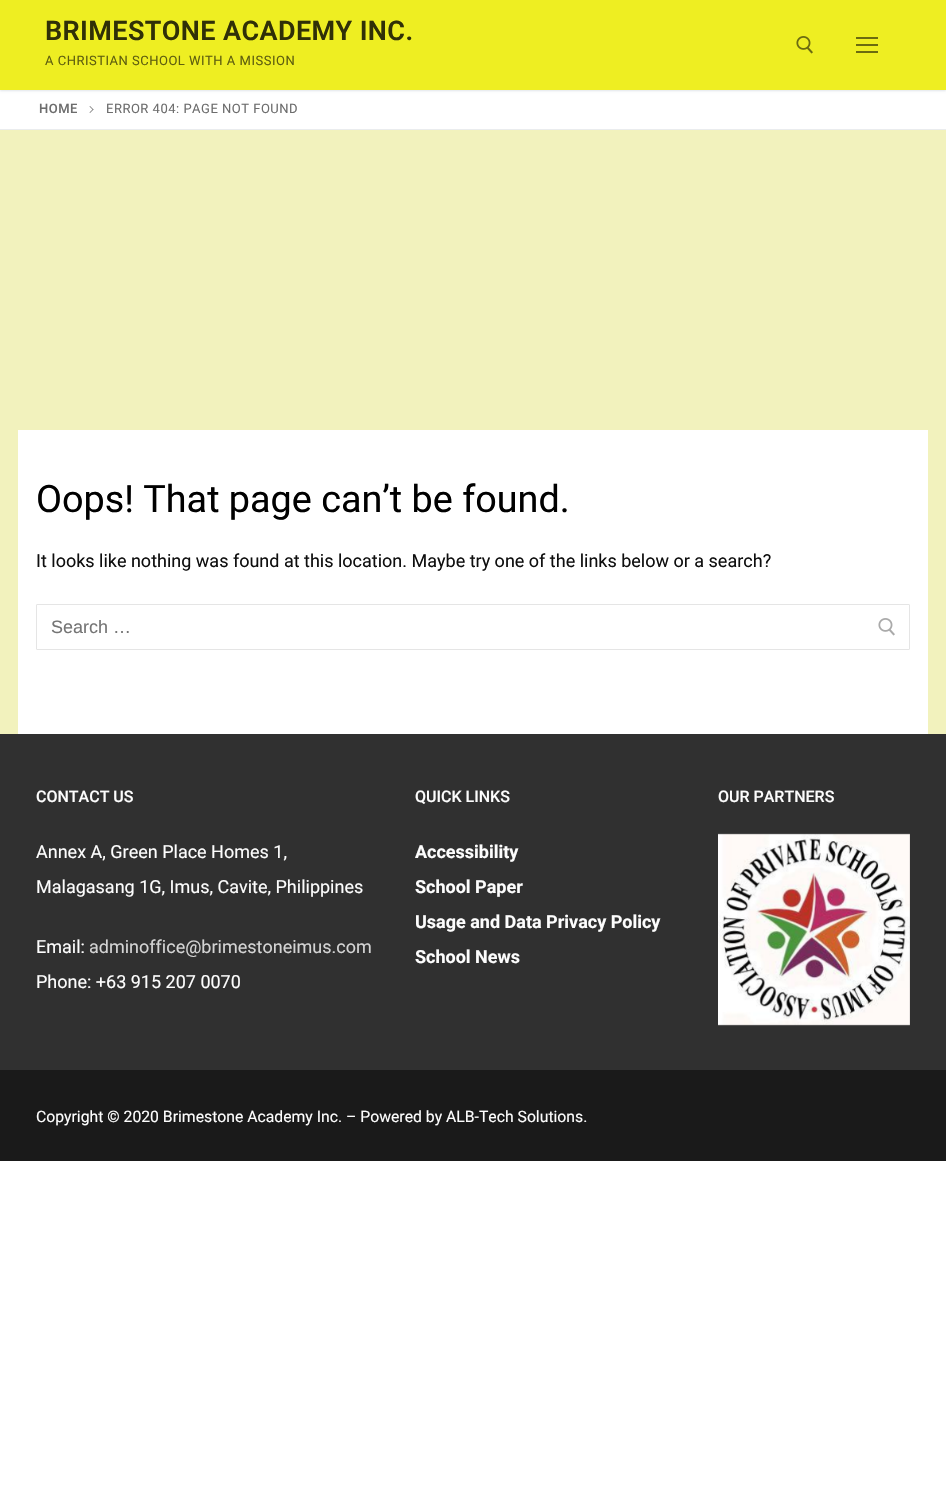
void draw(SkCanvas* canvas) {
    SkPaint paint;
    paint.setAntiAlias(true);
    auto face = [&](const char* family, int weight, float size, bool italic = false) {
        SkFontStyle style(weight, SkFontStyle::kNormal_Width,
            italic ? SkFontStyle::kItalic_Slant : SkFontStyle::kUpright_Slant);
        SkFont result(fontMgr->matchFamilyStyle(family, style), size);
        result.setSubpixel(true);
        return result;
    };
    auto write = [&](const char* s, float x, float y, const SkFont& font, SkColor color) {
        SkPaint ink(SkColor4f::FromColor(color));
        ink.setAntiAlias(true);
        canvas->drawString(s, x, y, font, ink);
    };
    auto writeSpaced = [&](const char* s, float x, float y, const SkFont& font, const SkPaint& ink, float letter, float word) {
        std::vector<SkGlyphID> glyphs(font.countText(s, strlen(s), SkTextEncoding::kUTF8));
        std::vector<float> xs(glyphs.size());
        font.textToGlyphs(s, strlen(s), SkTextEncoding::kUTF8, glyphs);
        font.getXPos(glyphs, xs, x);
        float extra = 0;
        for (size_t i = 0; i < glyphs.size(); i++) {
            xs[i] += extra;
            extra += letter + word * (glyphs[i] == font.unicharToGlyph(' '));
        }
        canvas->drawTextBlob(SkTextBlob::MakeFromPosHGlyphs(glyphs, xs, y, font), 0, 0, ink);
    };
    auto block = [&](float x, float y, float w, float h, SkColor color) {
        SkPaint ink(SkColor4f::FromColor(color));
        ink.setAntiAlias(true);
        canvas->drawRect(SkRect::MakeXYWH(x, y, w, h), ink);
    };
    auto paste = [&](const char* path, float x, float y, float w, float h) {
        auto image = SkImages::DeferredFromEncodedData(SkData::MakeFromFileName(path));
        canvas->drawImageRect(image, SkRect::MakeXYWH(x, y, w, h), SkSamplingOptions());
    };
    canvas->clear(SK_ColorWHITE);
    paint.setColor(SkColorSetRGB(225, 229, 234));
    paint.setMaskFilter(SkMaskFilter::MakeBlur(kNormal_SkBlurStyle, 1));
    canvas->drawRect(SkRect::MakeXYWH(0, 1, 946, 90), paint);
    paint.setMaskFilter(nullptr);
    block(0, 0, 946, 90, SkColorSetRGB(238, 238, 34));
    auto kFont1 = face("Roboto", 600, 27);
    paint.setColor(SkColorSetRGB(48, 48, 7));
    writeSpaced("BRIMESTONE ACADEMY INC.", 45, 40, kFont1, paint, 0.4f, 0);
    auto kFont2 = face("Roboto", 400, 13);
    paint.setColor(SkColorSetRGB(95, 95, 14));
    writeSpaced("A CHRISTIAN SCHOOL WITH A MISSION", 45, 65, kFont2, paint, 0.5f, 0);
    paste("pic1.png", 796, 36, 17, 18);
    block(856, 44, 22, 2, SkColorSetRGB(107, 107, 15));
    block(856, 37, 22, 2, SkColorSetRGB(107, 107, 15));
    block(856, 51, 22, 2, SkColorSetRGB(107, 107, 15));
    block(0, 129, 946, 1, SkColorSetRGB(234, 236, 238));
    auto kFont3 = face("Roboto", 500, 13);
    paint.setColor(SkColorSetRGB(109, 109, 109));
    writeSpaced("HOME", 39, 113, kFont3, paint, 0.5f, 0);
    canvas->drawPath(SkPathBuilder().moveTo(93.5f, 109.5f).lineTo(90, 113).lineTo(89.5f, 112.5f).lineTo(93, 109).close().detach(), paint);
    canvas->drawPath(SkPathBuilder().moveTo(93.5f, 109.5f).lineTo(93, 110).lineTo(89.5f, 106.5f).lineTo(90, 106).close().detach(), paint);
    writeSpaced("ERROR 404: PAGE NOT FOUND", 106, 113, kFont2, paint, 0.5f, 0);
    block(0, 130, 946, 604, SkColorSetRGB(242, 242, 189));
    block(18, 430, 910, 304, SK_ColorWHITE);
    auto kFont4 = face("Roboto", 400, 37.75f);
    write("Oops! That page can’t be found.", 36, 512, kFont4, SK_ColorBLACK);
    auto kFont5 = face("Roboto", 400, 18);
    write("It looks like nothing was found at this location. Maybe try one of the links below or a search?", 36, 567, kFont5, SkColorSetRGB(15, 15, 15));
    paint.setStyle(SkPaint::kStroke_Style);
    paint.setStrokeWidth(1);
    paint.setColor(SkColorSetRGB(229, 229, 229));
    canvas->drawRoundRect(SkRect::MakeXYWH(36.5f, 604.5f, 873, 45), 0.5f, 0.5f, paint);
    auto kFont6 = face("Liberation Sans", 400, 18);
    write("Search …", 51, 633, kFont6, SkColorSetRGB(117, 117, 117));
    paste("pic2.png", 878, 618, 17, 18);
    block(0, 734, 946, 336, SkColorSetRGB(48, 48, 48));
    auto kFont7 = face("Roboto", 500, 16);
    write("CONTACT US", 36, 802, kFont7, SkColorSetRGB(253, 253, 253));
    write("Annex A, Green Place Homes 1,", 36, 858, kFont5, SkColorSetRGB(253, 253, 253));
    write("Malagasang 1G, Imus, Cavite, Philippines", 36, 893, kFont5, SkColorSetRGB(253, 253, 253));
    write("Email:", 36, 953, kFont5, SkColorSetRGB(253, 253, 253));
    write("adminoffice@brimestoneimus.com", 89, 953, kFont5, SkColorSetRGB(212, 212, 212));
    write("Phone: +63 915 207 0070", 36, 988, kFont5, SkColorSetRGB(253, 253, 253));
    write("QUICK LINKS", 415, 802, kFont7, SkColorSetRGB(253, 253, 253));
    auto kFont8 = face("Roboto", 700, 18);
    write("Accessibility", 415, 858, kFont8, SkColorSetRGB(253, 253, 253));
    write("School Paper", 415, 893, kFont8, SkColorSetRGB(253, 253, 253));
    write("Usage and Data Privacy Policy", 415, 928, kFont8, SkColorSetRGB(253, 253, 253));
    write("School News", 415, 963, kFont8, SkColorSetRGB(253, 253, 253));
    write("OUR PARTNERS", 718, 802, kFont7, SkColorSetRGB(253, 253, 253));
    paste("pic3.png", 718, 833, 192, 193);
    block(0, 1070, 946, 91, SkColorSetRGB(26, 26, 26));
    auto kFont9 = face("Roboto", 400, 15.75f);
    write("Copyright © 2020 Brimestone Academy Inc. – Powered by ALB-Tech Solutions.", 36, 1122, kFont9, SkColorSetRGB(253, 253, 253));
}
